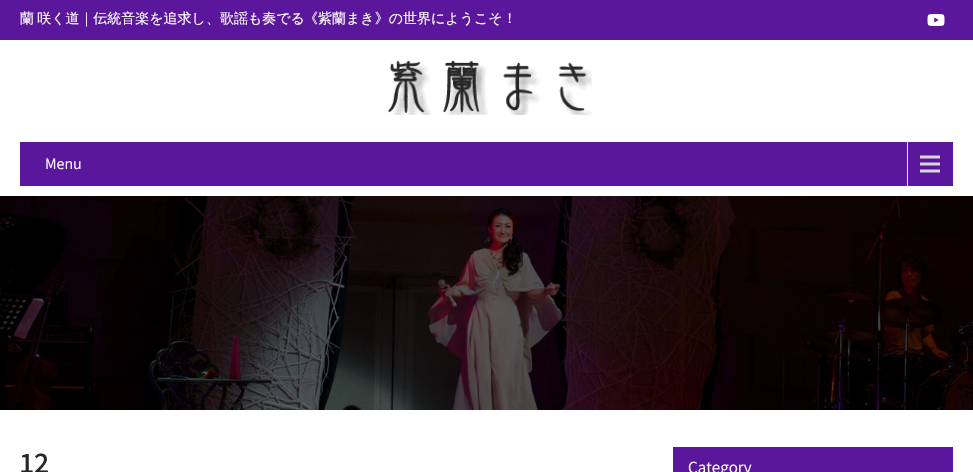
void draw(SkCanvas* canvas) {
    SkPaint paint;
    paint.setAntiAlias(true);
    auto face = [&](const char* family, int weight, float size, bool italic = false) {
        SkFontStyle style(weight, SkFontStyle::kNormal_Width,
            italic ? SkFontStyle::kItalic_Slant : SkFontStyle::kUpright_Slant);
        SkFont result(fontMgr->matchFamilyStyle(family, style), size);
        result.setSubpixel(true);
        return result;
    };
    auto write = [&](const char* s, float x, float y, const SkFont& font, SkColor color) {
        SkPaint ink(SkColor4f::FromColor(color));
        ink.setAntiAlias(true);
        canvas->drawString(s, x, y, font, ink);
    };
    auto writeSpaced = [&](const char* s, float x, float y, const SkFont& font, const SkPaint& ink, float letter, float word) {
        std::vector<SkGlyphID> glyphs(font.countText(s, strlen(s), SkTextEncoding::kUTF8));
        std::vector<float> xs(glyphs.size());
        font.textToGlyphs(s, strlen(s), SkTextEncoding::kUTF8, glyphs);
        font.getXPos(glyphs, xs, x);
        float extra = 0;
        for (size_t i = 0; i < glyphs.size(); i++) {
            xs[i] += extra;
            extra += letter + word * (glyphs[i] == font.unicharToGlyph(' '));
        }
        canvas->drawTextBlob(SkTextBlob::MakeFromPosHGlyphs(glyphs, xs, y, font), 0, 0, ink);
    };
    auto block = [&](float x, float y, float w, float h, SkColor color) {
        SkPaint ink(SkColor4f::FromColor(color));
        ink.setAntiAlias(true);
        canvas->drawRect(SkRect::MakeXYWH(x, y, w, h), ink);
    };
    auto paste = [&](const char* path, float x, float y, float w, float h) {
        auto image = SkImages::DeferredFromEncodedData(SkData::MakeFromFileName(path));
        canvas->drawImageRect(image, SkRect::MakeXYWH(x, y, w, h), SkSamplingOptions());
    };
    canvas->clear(SK_ColorWHITE);
    block(0, 0, 973, 40, SkColorSetRGB(91, 23, 155));
    auto kFont1 = face("WenQuanYi Zen Hei", 500, 14);
    paint.setColor(SK_ColorWHITE);
    writeSpaced("蘭 咲く道｜伝統音楽を追求し、歌謡も奏でる", 20, 23, kFont1, paint, 0, -1);
    write("《紫蘭まき》の世界にようこそ！", 304, 23, kFont1, SK_ColorWHITE);
    paste("pic1.png", 927, 14, 18, 12);
    paste("pic2.png", 387, 60, 205, 55);
    block(20, 142, 933, 44, SkColorSetRGB(91, 23, 155));
    paste("pic3.png", 907, 142, 33, 44);
    auto kFont2 = face("Assistant", 400, 16);
    write("Menu", 45, 169, kFont2, SK_ColorWHITE);
    paste("pic4.png", 0, 196, 973, 214);
    auto kFont3 = face("Assistant", 600, 30);
    write("12", 20, 473, kFont3, SkColorSetRGB(39, 39, 39));
    block(673, 447, 280, 25, SkColorSetRGB(91, 23, 155));
    auto kFont4 = face("Assistant", 400, 17);
    write("Category", 688, 473, kFont4, SK_ColorWHITE);
}
